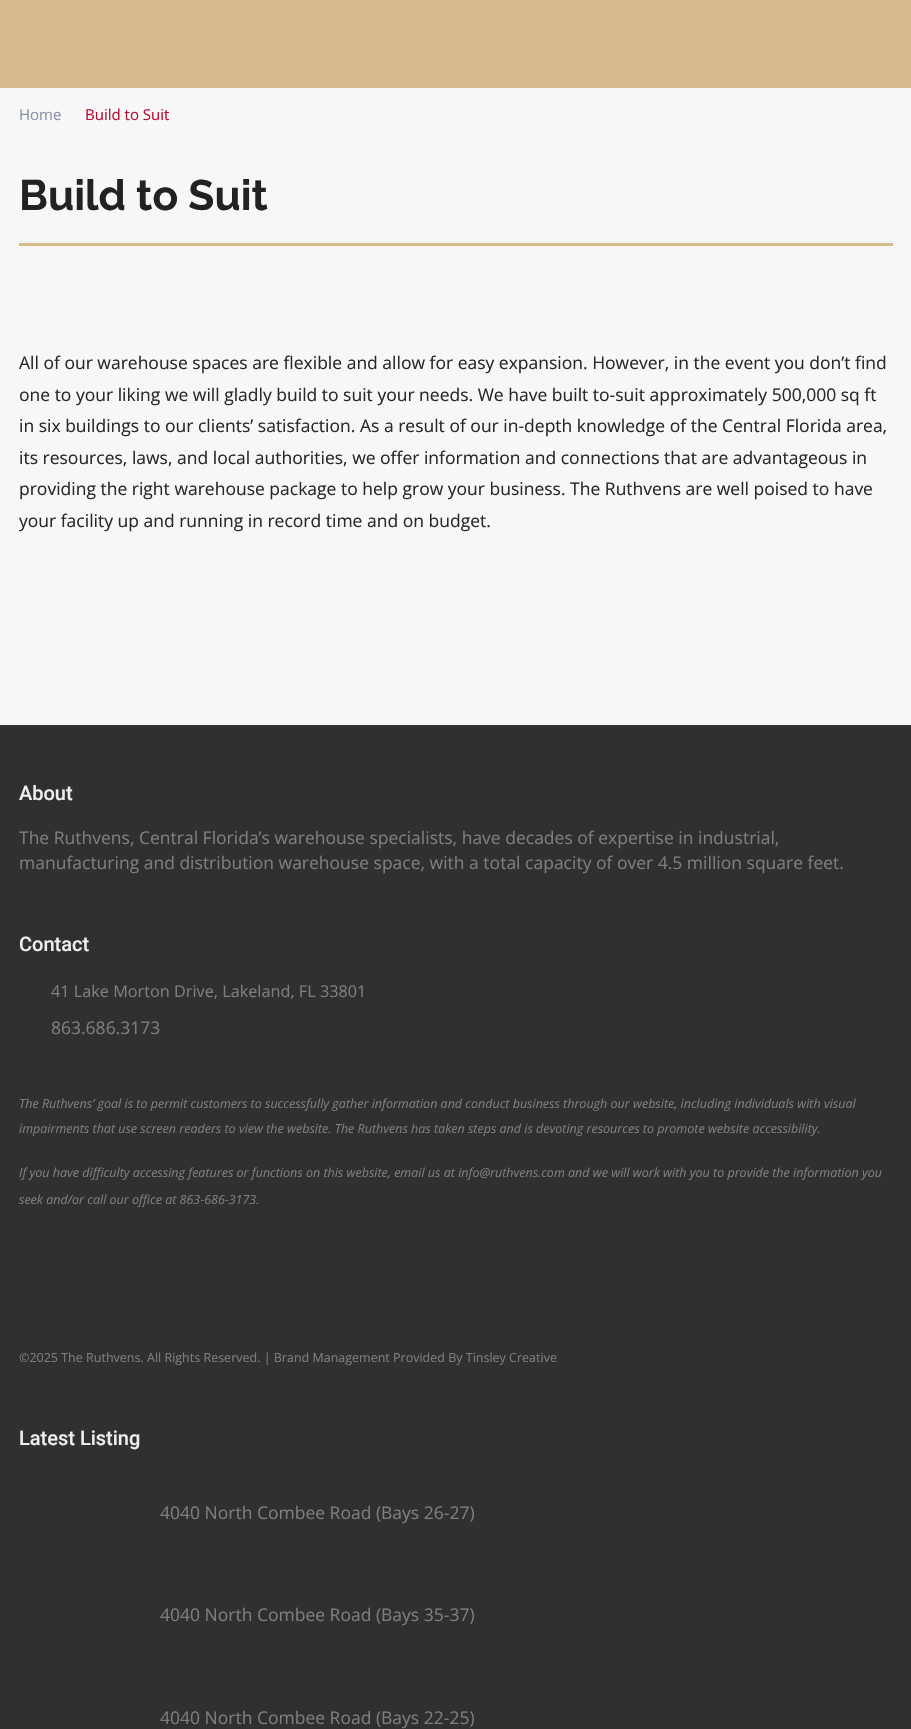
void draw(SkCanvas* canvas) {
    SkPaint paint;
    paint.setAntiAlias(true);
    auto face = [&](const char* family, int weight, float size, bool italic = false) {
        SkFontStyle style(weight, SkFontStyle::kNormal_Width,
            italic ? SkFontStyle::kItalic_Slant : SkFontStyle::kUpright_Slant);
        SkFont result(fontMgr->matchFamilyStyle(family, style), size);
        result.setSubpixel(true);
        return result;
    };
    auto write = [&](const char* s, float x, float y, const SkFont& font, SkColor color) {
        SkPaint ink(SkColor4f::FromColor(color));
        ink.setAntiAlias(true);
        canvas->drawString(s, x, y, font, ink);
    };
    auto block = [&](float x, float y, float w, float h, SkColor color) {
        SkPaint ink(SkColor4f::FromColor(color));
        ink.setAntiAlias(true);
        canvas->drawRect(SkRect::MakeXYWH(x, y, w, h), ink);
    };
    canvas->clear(SkColorSetRGB(247, 247, 247));
    block(0, 0, 911, 88, SkColorSetRGB(213, 186, 140));
    auto kFont1 = face("Open Sans", 400, 15);
    write("Home", 19, 120, kFont1, SkColorSetRGB(133, 147, 169));
    write("Build to Suit", 85, 120, kFont1, SkColorSetRGB(186, 12, 47));
    auto kFont2 = face("Raleway", 700, 42.5f);
    write("Build to Suit", 19, 210, kFont2, SkColorSetRGB(34, 34, 34));
    block(19, 241, 874, 1, SkColorSetRGB(235, 235, 235));
    block(19, 243, 874, 3, SkColorSetRGB(213, 186, 140));
    auto kFont3 = face("Open Sans", 400, 17.5f);
    write("All of our warehouse spaces are flexible and allow for easy expansion. However, in the event you don’t find", 19, 369, kFont3, SkColorSetRGB(40, 40, 40));
    write("one to your liking we will gladly build to suit your needs. We have built to-suit approximately 500,000 sq ft", 19, 401, kFont3, SkColorSetRGB(40, 40, 40));
    write("in six buildings to our clients’ satisfaction. As a result of our in-depth knowledge of the Central Florida area,", 19, 432, kFont3, SkColorSetRGB(40, 40, 40));
    write("its resources, laws, and local authorities, we offer information and connections that are advantageous in", 19, 464, kFont3, SkColorSetRGB(40, 40, 40));
    write("providing the right warehouse package to help grow your business. The Ruthvens are well poised to have", 19, 495, kFont3, SkColorSetRGB(40, 40, 40));
    write("your facility up and running in record time and on budget.", 19, 527, kFont3, SkColorSetRGB(40, 40, 40));
    block(0, 725, 911, 1004, SkColorSetRGB(48, 48, 48));
    auto kFont4 = face("Roboto", 500, 20);
    write("About", 19, 800, kFont4, SkColorSetRGB(238, 238, 238));
    write("The Ruthvens, Central Florida’s warehouse specialists, have decades of expertise in industrial,", 19, 844, kFont3, SkColorSetRGB(126, 126, 126));
    write("manufacturing and distribution warehouse space, with a total capacity of over 4.5 million square feet.", 19, 869, kFont3, SkColorSetRGB(126, 126, 126));
    write("Contact", 19, 951, kFont4, SkColorSetRGB(238, 238, 238));
    auto kFont5 = face("Open Sans", 400, 16.25f);
    write("41 Lake Morton Drive, Lakeland, FL 33801", 51, 997, kFont5, SkColorSetRGB(126, 126, 126));
    write("863.686.3173", 51, 1034, kFont3, SkColorSetRGB(126, 126, 126));
    auto kFont6 = face("Open Sans", 400, 12.5f, true);
    write("The Ruthvens’ goal is to permit customers to successfully gather information and conduct business through our website, including individuals with visual", 19, 1108, kFont6, SkColorSetRGB(126, 126, 126));
    write("impairments that use screen readers to view the website. The Ruthvens has taken steps and is devoting resources to promote website accessibility.", 19, 1133, kFont6, SkColorSetRGB(126, 126, 126));
    write("If you have difficulty accessing features or functions on this website, email us at info@ruthvens.com and we will work with you to provide the information you", 19, 1177, kFont6, SkColorSetRGB(126, 126, 126));
    write("seek and/or call our office at 863-686-3173.", 19, 1204, kFont6, SkColorSetRGB(126, 126, 126));
    auto kFont7 = face("Open Sans", 400, 12.5f);
    write("©2025 The Ruthvens. All Rights Reserved. | Brand Management Provided By Tinsley Creative", 19, 1362, kFont7, SkColorSetRGB(126, 126, 126));
    write("Latest Listing", 19, 1445, kFont4, SkColorSetRGB(238, 238, 238));
    write("4040 North Combee Road (Bays 26-27)", 160, 1519, kFont3, SkColorSetRGB(126, 126, 126));
    write("4040 North Combee Road (Bays 35-37)", 160, 1621, kFont3, SkColorSetRGB(126, 126, 126));
    write("4040 North Combee Road (Bays 22-25)", 160, 1724, kFont3, SkColorSetRGB(126, 126, 126));
}
